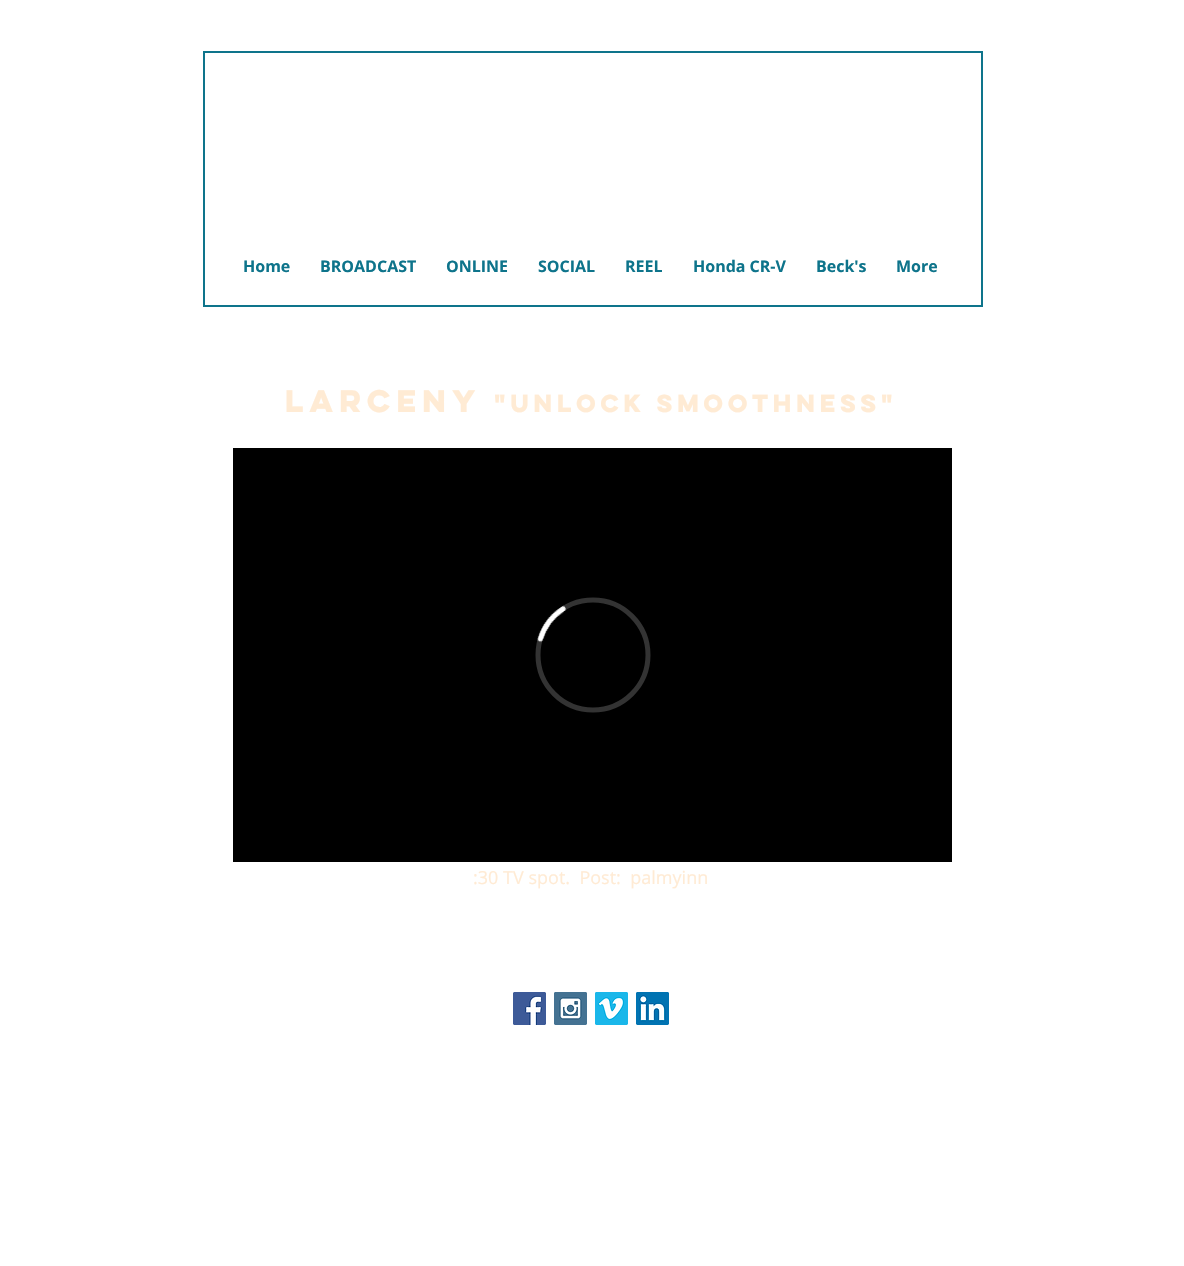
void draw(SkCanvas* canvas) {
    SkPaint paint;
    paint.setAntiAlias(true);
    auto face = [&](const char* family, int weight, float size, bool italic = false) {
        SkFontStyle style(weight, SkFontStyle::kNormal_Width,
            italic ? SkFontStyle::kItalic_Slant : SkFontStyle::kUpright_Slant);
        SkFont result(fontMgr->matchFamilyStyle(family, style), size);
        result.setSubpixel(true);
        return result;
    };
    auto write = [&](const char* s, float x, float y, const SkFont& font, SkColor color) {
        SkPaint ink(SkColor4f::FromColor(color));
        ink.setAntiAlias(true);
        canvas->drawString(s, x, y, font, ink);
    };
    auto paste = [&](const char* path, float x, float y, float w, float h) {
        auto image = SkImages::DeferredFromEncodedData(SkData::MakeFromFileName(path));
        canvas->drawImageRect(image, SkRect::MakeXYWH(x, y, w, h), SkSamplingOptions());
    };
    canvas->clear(SK_ColorWHITE);
    paint.setStyle(SkPaint::kStroke_Style);
    paint.setStrokeWidth(2);
    paint.setColor(SkColorSetRGB(14, 116, 139));
    canvas->drawRect(SkRect::MakeXYWH(204, 52, 778, 254), paint);
    auto kFont1 = face("Open Sans", 700, 16);
    write("Home", 243, 272, kFont1, SkColorSetRGB(14, 116, 139));
    write("BROADCAST", 320, 272, kFont1, SkColorSetRGB(14, 116, 139));
    write("ONLINE", 446, 272, kFont1, SkColorSetRGB(14, 116, 139));
    write("SOCIAL", 538, 272, kFont1, SkColorSetRGB(14, 116, 139));
    write("REEL", 625, 272, kFont1, SkColorSetRGB(14, 116, 139));
    write("Honda CR-V", 693, 272, kFont1, SkColorSetRGB(14, 116, 139));
    write("Beck's", 816, 272, kFont1, SkColorSetRGB(14, 116, 139));
    write("More", 896, 272, kFont1, SkColorSetRGB(14, 116, 139));
    auto kFont2 = face("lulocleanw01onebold", 700, 28);
    write("LARCENY", 285, 412, kFont2, SkColorSetRGB(255, 235, 212));
    auto kFont3 = face("lulocleanw01onebold", 700, 22);
    write("\"UNLOCK SMOOTHNESS\"", 494, 412, kFont3, SkColorSetRGB(255, 235, 212));
    paste("pic1.png", 233, 448, 719, 414);
    auto kFont4 = face("Open Sans", 400, 18);
    write(":30 TV spot.  Post:  palmyinn", 473, 884, kFont4, SkColorSetRGB(255, 235, 212));
    paste("pic2.png", 513, 992, 33, 33);
    paste("pic3.png", 554, 992, 33, 33);
    paste("pic4.png", 595, 992, 33, 33);
    paste("pic5.png", 636, 992, 33, 33);
}
